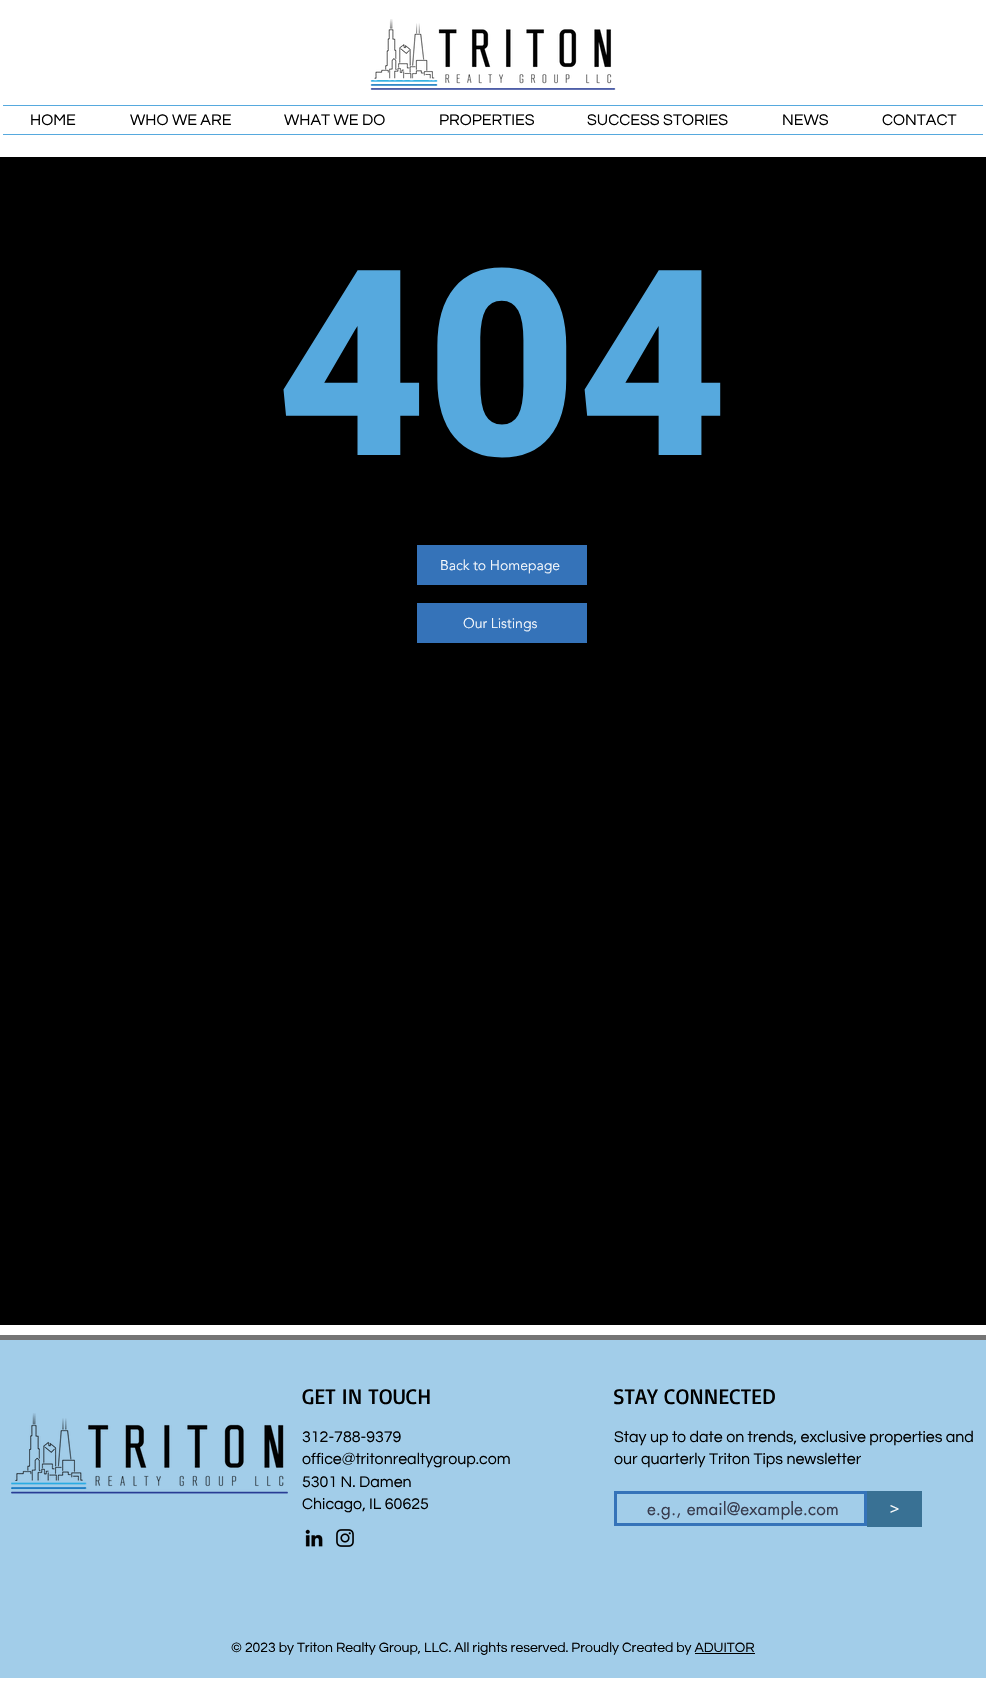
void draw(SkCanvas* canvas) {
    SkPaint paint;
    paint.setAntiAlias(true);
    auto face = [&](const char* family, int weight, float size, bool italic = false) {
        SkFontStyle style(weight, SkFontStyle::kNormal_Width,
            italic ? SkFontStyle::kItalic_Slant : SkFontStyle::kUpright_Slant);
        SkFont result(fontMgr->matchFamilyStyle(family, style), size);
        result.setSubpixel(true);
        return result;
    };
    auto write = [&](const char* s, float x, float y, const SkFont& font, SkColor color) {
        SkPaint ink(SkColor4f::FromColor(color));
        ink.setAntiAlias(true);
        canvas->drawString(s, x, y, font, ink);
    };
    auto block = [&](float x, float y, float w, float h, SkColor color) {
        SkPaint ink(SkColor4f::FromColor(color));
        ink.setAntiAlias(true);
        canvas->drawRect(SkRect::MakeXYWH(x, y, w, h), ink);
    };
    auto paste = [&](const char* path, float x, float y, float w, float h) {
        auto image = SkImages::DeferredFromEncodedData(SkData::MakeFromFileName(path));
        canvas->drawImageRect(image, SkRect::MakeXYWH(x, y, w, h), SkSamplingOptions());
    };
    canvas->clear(SK_ColorWHITE);
    paste("pic1.png", 370, 19, 246, 71);
    block(3, 105, 980, 1, SkColorSetRGB(86, 169, 222));
    block(3, 134, 980, 1, SkColorSetRGB(86, 169, 222));
    auto kFont1 = face("Questrial", 400, 16);
    write("HOME", 30, 125, kFont1, SK_ColorBLACK);
    write("WHO WE ARE", 130, 125, kFont1, SK_ColorBLACK);
    write("WHAT WE DO", 284, 125, kFont1, SK_ColorBLACK);
    write("PROPERTIES", 439, 125, kFont1, SK_ColorBLACK);
    write("SUCCESS STORIES", 587, 125, kFont1, SK_ColorBLACK);
    write("NEWS", 782, 125, kFont1, SK_ColorBLACK);
    write("CONTACT", 882, 125, kFont1, SK_ColorBLACK);
    block(0, 157, 986, 1168, SK_ColorBLACK);
    auto kFont2 = face("Roboto", 900, 260);
    write("404", 276, 455, kFont2, SkColorSetRGB(86, 169, 222));
    block(417, 545, 170, 40, SkColorSetRGB(53, 115, 185));
    auto kFont3 = face("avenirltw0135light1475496", 300, 14);
    write("Back to Homepage", 440, 570, kFont3, SK_ColorWHITE);
    block(417, 603, 170, 40, SkColorSetRGB(53, 115, 185));
    write("Our Listings", 463, 628, kFont3, SK_ColorWHITE);
    block(0, 1340, 986, 338, SkColorSetRGB(162, 205, 233));
    block(0, 1335, 986, 5, SkColorSetRGB(117, 117, 117));
    paste("pic2.png", 11, 1413, 277, 81);
    auto kFont4 = face("Basic", 400, 22);
    write("GET IN TOUCH", 302, 1404, kFont4, SK_ColorBLACK);
    write("312-788-9379", 302, 1442, kFont1, SK_ColorBLACK);
    write("office@tritonrealtygroup.com", 302, 1464, kFont1, SK_ColorBLACK);
    write("5301 N. Damen", 302, 1487, kFont1, SK_ColorBLACK);
    write("Chicago, IL 60625", 302, 1509, kFont1, SK_ColorBLACK);
    paste("pic3.png", 305, 1529, 18, 18);
    paste("pic4.png", 336, 1529, 18, 18);
    write("STAY CONNECTED", 613, 1404, kFont4, SK_ColorBLACK);
    write("Stay up to date on trends, exclusive properties and", 614, 1442, kFont1, SK_ColorBLACK);
    write("our quarterly Triton Tips newsletter", 614, 1464, kFont1, SK_ColorBLACK);
    paint.setStyle(SkPaint::kStroke_Style);
    paint.setStrokeWidth(3);
    paint.setColor(SkColorSetRGB(53, 115, 185));
    canvas->drawRect(SkRect::MakeXYWH(615.5f, 1492.5f, 250, 32), paint);
    auto kFont5 = face("futura", 400, 17);
    write("e.g., email@example.com", 647, 1515, kFont5, SkColorSetRGB(55, 59, 77));
    block(867, 1491, 55, 36, SkColorSetRGB(57, 113, 148));
    write(">", 890, 1513, kFont1, SK_ColorWHITE);
    auto kFont6 = face("Questrial", 400, 14);
    write("© 2023 by Triton Realty Group, LLC. All rights reserved. Proudly Created by ADUITOR", 231, 1652, kFont6, SK_ColorBLACK);
    block(695, 1653, 60, 1, SK_ColorBLACK);
}
